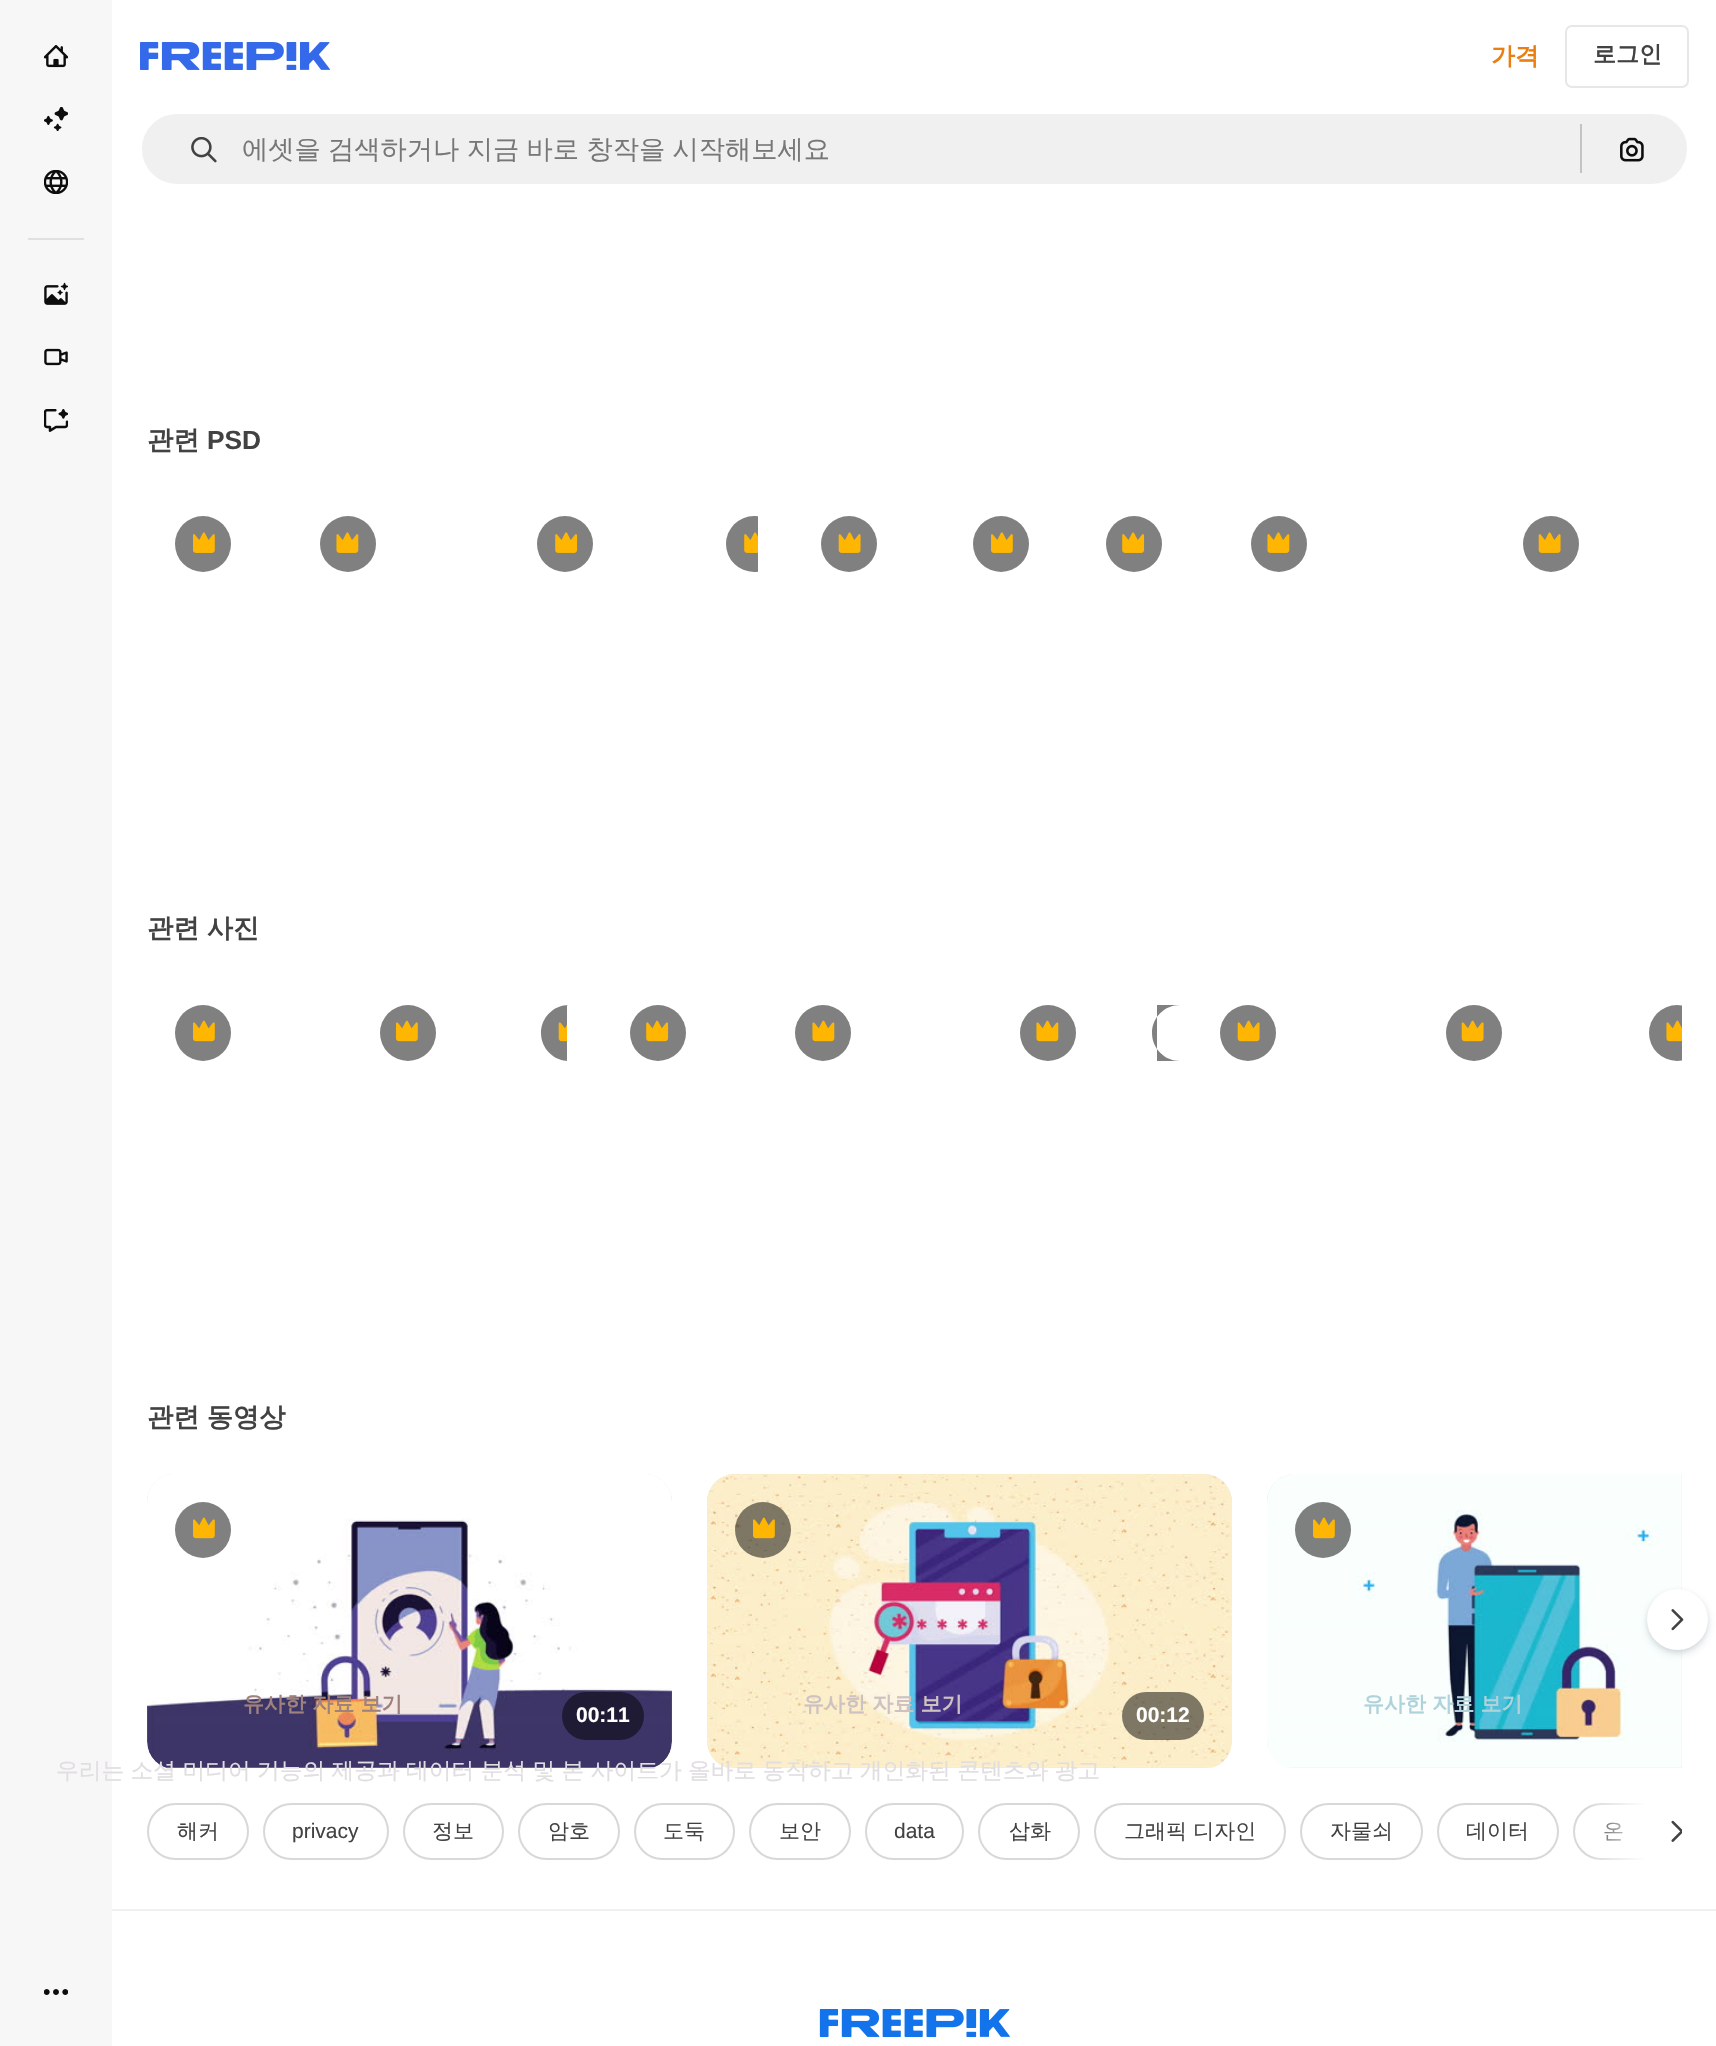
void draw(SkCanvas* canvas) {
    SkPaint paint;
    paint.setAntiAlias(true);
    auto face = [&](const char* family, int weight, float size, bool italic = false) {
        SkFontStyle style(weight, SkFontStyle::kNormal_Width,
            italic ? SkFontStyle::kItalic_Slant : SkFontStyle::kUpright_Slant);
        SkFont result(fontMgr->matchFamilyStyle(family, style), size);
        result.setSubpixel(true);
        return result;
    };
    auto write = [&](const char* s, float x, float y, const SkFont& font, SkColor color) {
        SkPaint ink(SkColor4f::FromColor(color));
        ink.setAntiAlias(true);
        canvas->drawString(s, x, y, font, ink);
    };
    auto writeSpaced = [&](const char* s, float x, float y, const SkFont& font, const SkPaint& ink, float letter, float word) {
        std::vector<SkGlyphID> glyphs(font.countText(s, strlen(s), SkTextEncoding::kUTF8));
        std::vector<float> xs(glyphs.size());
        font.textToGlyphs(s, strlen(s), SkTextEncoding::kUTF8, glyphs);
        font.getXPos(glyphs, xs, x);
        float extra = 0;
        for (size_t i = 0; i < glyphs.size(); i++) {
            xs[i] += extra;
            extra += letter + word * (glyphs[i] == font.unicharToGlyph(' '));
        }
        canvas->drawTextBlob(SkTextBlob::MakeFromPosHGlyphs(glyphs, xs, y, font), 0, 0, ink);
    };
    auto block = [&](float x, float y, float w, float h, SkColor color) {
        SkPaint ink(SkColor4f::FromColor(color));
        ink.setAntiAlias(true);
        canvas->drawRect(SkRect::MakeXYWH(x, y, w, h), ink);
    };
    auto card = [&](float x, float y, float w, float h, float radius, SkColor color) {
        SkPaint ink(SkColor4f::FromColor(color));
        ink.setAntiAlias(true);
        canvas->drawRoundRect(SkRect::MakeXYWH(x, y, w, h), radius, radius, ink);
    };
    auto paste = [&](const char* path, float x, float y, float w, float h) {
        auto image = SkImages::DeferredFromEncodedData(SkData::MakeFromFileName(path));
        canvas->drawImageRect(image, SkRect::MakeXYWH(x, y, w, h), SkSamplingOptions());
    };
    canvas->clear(SK_ColorWHITE);
    block(0, 0, 112, 2046, SkColorSetRGB(247, 247, 247));
    paste("pic1.png", 44, 45, 24, 23);
    paste("pic2.png", 44, 107, 24, 24);
    paste("pic3.png", 44, 170, 24, 24);
    block(28, 238, 56, 2, SkColorSetRGB(224, 224, 224));
    paste("pic4.png", 44, 282, 24, 23);
    paste("pic5.png", 44, 348, 24, 18);
    paste("pic6.png", 44, 409, 24, 23);
    paste("pic7.png", 44, 1989, 24, 6);
    paste("pic8.png", 140, 42, 190, 28);
    auto kFont1 = face("WenQuanYi Zen Hei", 700, 24);
    write("가격", 1491, 64, kFont1, SkColorSetRGB(234, 126, 17));
    paint.setStyle(SkPaint::kStroke_Style);
    paint.setStrokeWidth(2);
    paint.setColor(SkColorSetRGB(231, 231, 231));
    canvas->drawRoundRect(SkRect::MakeXYWH(1566, 26, 122, 61), 6, 6, paint);
    auto kFont2 = face("WenQuanYi Zen Hei", 700, 23);
    write("로그인", 1593, 62, kFont2, SkColorSetRGB(66, 66, 66));
    paint.setStyle(SkPaint::kFill_Style);
    paint.setColor(SkColorSetRGB(240, 240, 240));
    canvas->drawRoundRect(SkRect::MakeXYWH(141, 113, 1547, 72), 36, 36, paint);
    paint.setStyle(SkPaint::kStroke_Style);
    paint.setColor(SK_ColorWHITE);
    canvas->drawRoundRect(SkRect::MakeXYWH(141, 113, 1547, 72), 36, 36, paint);
    paste("pic9.png", 191, 137, 26, 26);
    auto kFont3 = face("WenQuanYi Zen Hei", 500, 26.25f);
    paint.setStyle(SkPaint::kFill_Style);
    paint.setColor(SkColorSetRGB(119, 119, 119));
    writeSpaced("에셋을 검색하거나 지금 바로 창작을 시작해보세요", 242, 158, kFont3, paint, 0, -0.5f);
    block(1580, 124, 2, 49, SkColorSetRGB(195, 195, 195));
    paste("pic10.png", 1620, 137, 24, 25);
    auto kFont4 = face("WenQuanYi Zen Hei", 700, 26.25f);
    write("관련", 147, 449, kFont4, SkColorSetRGB(66, 66, 66));
    auto kFont5 = face("Liberation Sans", 700, 26.25f);
    write("PSD", 207, 449, kFont5, SkColorSetRGB(66, 66, 66));
    paint.setColor(SkColorSetRGB(128, 128, 128));
    canvas->drawCircle(203, 544, 28, paint);
    paste("pic11.png", 193, 532, 22, 21);
    canvas->drawCircle(348, 544, 28, paint);
    paste("pic12.png", 336, 532, 23, 21);
    canvas->drawCircle(565, 544, 28, paint);
    paste("pic13.png", 555, 532, 23, 21);
    canvas->save();
    canvas->clipPath(SkPathBuilder().moveTo(726, 488).lineTo(730, 488).cubicTo(745.5f, 488, 758, 500.5f, 758, 516).lineTo(758, 810).cubicTo(758, 825.5f, 745.5f, 838, 730, 838).lineTo(726, 838).cubicTo(710.5f, 838, 698, 825.5f, 698, 810).lineTo(698, 516).cubicTo(698, 500.5f, 710.5f, 488, 726, 488).close().detach(), true);
    canvas->drawCircle(754, 544, 28, paint);
    canvas->restore();
    paste("pic14.png", 744, 532, 14, 21);
    canvas->drawCircle(849, 544, 28, paint);
    paste("pic15.png", 838, 532, 23, 21);
    canvas->drawCircle(1001, 544, 28, paint);
    paste("pic11.png", 991, 532, 22, 21);
    canvas->drawCircle(1134, 544, 28, paint);
    paste("pic13.png", 1122, 532, 23, 21);
    canvas->drawCircle(1279, 544, 28, paint);
    paste("pic12.png", 1267, 532, 23, 21);
    canvas->drawCircle(1551, 544, 28, paint);
    paste("pic15.png", 1538, 532, 23, 21);
    paint.setColor(SkColorSetRGB(66, 66, 66));
    writeSpaced("관련 사진", 147, 937, kFont4, paint, 0, -0.5f);
    paint.setColor(SkColorSetRGB(128, 128, 128));
    canvas->drawCircle(203, 1033, 28, paint);
    paste("pic16.png", 193, 1020, 22, 22);
    canvas->drawCircle(408, 1033, 28, paint);
    paste("pic16.png", 396, 1020, 22, 22);
    canvas->drawPath(SkPathBuilder().moveTo(569, 1005).lineTo(567, 1005).lineTo(567, 1061).lineTo(569, 1061).cubicTo(553.5f, 1061, 541, 1048.5f, 541, 1033).cubicTo(541, 1017.5f, 553.5f, 1005, 569, 1005).close().detach(), paint);
    paste("pic17.png", 558, 1022, 9, 20);
    canvas->drawCircle(658, 1033, 28, paint);
    paste("pic18.png", 646, 1020, 23, 22);
    canvas->drawCircle(823, 1033, 28, paint);
    paste("pic19.png", 812, 1020, 23, 22);
    canvas->drawCircle(1048, 1033, 28, paint);
    paste("pic19.png", 1036, 1020, 23, 22);
    canvas->drawPath(SkPathBuilder().moveTo(1180, 1005).lineTo(1157, 1005).lineTo(1157, 1061).lineTo(1180, 1061).cubicTo(1164.5f, 1061, 1152, 1048.5f, 1152, 1033).cubicTo(1152, 1017.5f, 1164.5f, 1005, 1180, 1005).close().detach(), paint);
    canvas->drawCircle(1248, 1033, 28, paint);
    paste("pic20.png", 1237, 1020, 23, 22);
    canvas->drawCircle(1474, 1033, 28, paint);
    paste("pic20.png", 1461, 1020, 23, 22);
    canvas->save();
    canvas->clipPath(SkPathBuilder().moveTo(1649, 977).lineTo(1654, 977).cubicTo(1669.5f, 977, 1682, 989.5f, 1682, 1005).lineTo(1682, 1299).cubicTo(1682, 1314.5f, 1669.5f, 1327, 1654, 1327).lineTo(1649, 1327).cubicTo(1633.5f, 1327, 1621, 1314.5f, 1621, 1299).lineTo(1621, 1005).cubicTo(1621, 989.5f, 1633.5f, 977, 1649, 977).close().detach(), true);
    canvas->drawCircle(1677, 1033, 28, paint);
    canvas->restore();
    paste("pic21.png", 1666, 1020, 16, 22);
    paint.setColor(SkColorSetRGB(66, 66, 66));
    writeSpaced("관련 동영상", 147, 1426, kFont4, paint, 0, -0.5f);
    paint.setColor(SkColorSetRGB(230, 230, 230));
    canvas->drawPath(SkPathBuilder().moveTo(1295, 1474).lineTo(1682, 1474).lineTo(1682, 1768).lineTo(1295, 1768).cubicTo(1279.5f, 1768, 1267, 1755.5f, 1267, 1740).lineTo(1267, 1502).cubicTo(1267, 1486.5f, 1279.5f, 1474, 1295, 1474).close().detach(), paint);
    paste("pic26.png", 1267, 1474, 415, 294);
    paint.setColor(SkColorSetARGB(38, 55, 73, 87));
    paint.setMaskFilter(SkMaskFilter::MakeBlur(kNormal_SkBlurStyle, 4.5f));
    canvas->drawRoundRect(SkRect::MakeXYWH(1647, 1593, 61, 61), 30.5f, 30.5f, paint);
    paint.setMaskFilter(nullptr);
    paint.setColor(SkColorSetARGB(26, 55, 73, 87));
    paint.setMaskFilter(SkMaskFilter::MakeBlur(kNormal_SkBlurStyle, 2));
    canvas->drawRoundRect(SkRect::MakeXYWH(1647, 1591, 61, 61), 30.5f, 30.5f, paint);
    paint.setMaskFilter(nullptr);
    paint.setColor(SK_ColorWHITE);
    canvas->drawCircle(1677.5f, 1619.5f, 30.5f, paint);
    paste("pic22.png", 1671, 1609, 13, 22);
    card(147, 1474, 525, 294, 28, SkColorSetRGB(230, 230, 230));
    paste("pic23.png", 147, 1474, 525, 294);
    paint.setColor(SkColorSetRGB(128, 128, 128));
    canvas->drawCircle(203, 1530, 28, paint);
    paste("pic16.png", 193, 1517, 22, 22);
    auto kFont6 = face("WenQuanYi Zen Hei", 700, 21);
    write("유사한 자료 보기", 243, 1711, kFont6, SkColorSetRGB(159, 130, 125));
    card(562, 1692, 82, 48, 24, SkColorSetARGB(128, 0, 0, 0));
    auto kFont7 = face("Liberation Sans", 700, 21);
    write("00:11", 576, 1722, kFont7, SK_ColorWHITE);
    card(707, 1474, 525, 294, 28, SkColorSetRGB(230, 230, 230));
    paste("pic25.png", 707, 1474, 525, 294);
    paint.setColor(SkColorSetARGB(128, 0, 0, 0));
    canvas->drawCircle(763, 1530, 28, paint);
    paste("pic24.png", 753, 1517, 22, 22);
    write("유사한 자료 보기", 803, 1711, kFont6, SkColorSetRGB(205, 194, 193));
    card(1122, 1692, 82, 48, 24, SkColorSetARGB(128, 0, 0, 0));
    write("00:12", 1136, 1722, kFont7, SK_ColorWHITE);
    paint.setColor(SkColorSetRGB(125, 128, 127));
    canvas->drawCircle(1323, 1530, 28, paint);
    paste("pic27.png", 1313, 1517, 22, 22);
    write("유사한 자료 보기", 1363, 1711, kFont6, SkColorSetRGB(176, 211, 219));
    paint.setStyle(SkPaint::kStroke_Style);
    paint.setColor(SkColorSetRGB(216, 216, 216));
    canvas->drawRoundRect(SkRect::MakeXYWH(148, 1804, 100, 55), 27.5f, 27.5f, paint);
    auto kFont8 = face("WenQuanYi Zen Hei", 500, 21);
    write("해커", 177, 1838, kFont8, SkColorSetRGB(66, 66, 66));
    canvas->drawRoundRect(SkRect::MakeXYWH(264, 1804, 124, 55), 27.5f, 27.5f, paint);
    auto kFont9 = face("Liberation Sans", 400, 21);
    write("privacy", 292, 1838, kFont9, SkColorSetRGB(66, 66, 66));
    canvas->drawRoundRect(SkRect::MakeXYWH(404, 1804, 99, 55), 27.5f, 27.5f, paint);
    write("정보", 432, 1838, kFont8, SkColorSetRGB(66, 66, 66));
    canvas->drawRoundRect(SkRect::MakeXYWH(519, 1804, 100, 55), 27.5f, 27.5f, paint);
    write("암호", 548, 1838, kFont8, SkColorSetRGB(66, 66, 66));
    canvas->drawRoundRect(SkRect::MakeXYWH(635, 1804, 99, 55), 27.5f, 27.5f, paint);
    write("도둑", 663, 1838, kFont8, SkColorSetRGB(66, 66, 66));
    canvas->drawRoundRect(SkRect::MakeXYWH(750, 1804, 100, 55), 27.5f, 27.5f, paint);
    write("보안", 779, 1838, kFont8, SkColorSetRGB(66, 66, 66));
    canvas->drawRoundRect(SkRect::MakeXYWH(866, 1804, 97, 55), 27.5f, 27.5f, paint);
    write("data", 894, 1838, kFont9, SkColorSetRGB(66, 66, 66));
    canvas->drawRoundRect(SkRect::MakeXYWH(979, 1804, 100, 55), 27.5f, 27.5f, paint);
    write("삽화", 1009, 1838, kFont8, SkColorSetRGB(66, 66, 66));
    canvas->drawRoundRect(SkRect::MakeXYWH(1095, 1804, 190, 55), 27.5f, 27.5f, paint);
    write("그래픽 디자인", 1124, 1838, kFont8, SkColorSetRGB(66, 66, 66));
    canvas->drawRoundRect(SkRect::MakeXYWH(1301, 1804, 121, 55), 27.5f, 27.5f, paint);
    write("자물쇠", 1330, 1838, kFont8, SkColorSetRGB(66, 66, 66));
    canvas->drawRoundRect(SkRect::MakeXYWH(1438, 1804, 120, 55), 27.5f, 27.5f, paint);
    write("데이터", 1466, 1838, kFont8, SkColorSetRGB(66, 66, 66));
    canvas->save();
    canvas->clipRect(SkRect::MakeXYWH(147, 1803, 1535, 57));
    canvas->drawRoundRect(SkRect::MakeXYWH(1574, 1804, 121, 55), 27.5f, 27.5f, paint);
    canvas->restore();
    write("온", 1603, 1838, kFont8, SkColorSetRGB(66, 66, 66));
    block(1647, 1803, 35, 57, SK_ColorWHITE);
    paint.setStyle(SkPaint::kFill_Style);
    {
        const SkColor colors[] = {SK_ColorWHITE, SkColorSetARGB(0, 255, 255, 255)};
        const float stops[] = {0, 1};
        const SkPoint ends[] = {{1647, 1831}, {1586, 1831}};
        paint.setShader(SkGradientShader::MakeLinear(ends, colors, stops, 2, SkTileMode::kClamp));
        paint.setAlpha(255);
    }
    canvas->drawRect(SkRect::MakeXYWH(1590, 1803, 57, 57), paint);
    paste("pic28.png", 1671, 1820, 11, 22);
    block(112, 1909, 1604, 2, SkColorSetRGB(240, 240, 240));
    paste("pic29.png", 819, 2009, 191, 28);
    auto kFont10 = face("WenQuanYi Zen Hei", 500, 22.75f);
    paint.setShader(nullptr);
    paint.setColor(SkColorSetRGB(225, 222, 225));
    writeSpaced("우리는 소셜 미디어 기능의 제공과 데이터 분석 및 본 사이트가 올바로 동작하고 개인화된 콘텐츠와 광고", 56, 1778, kFont10, paint, 0, -0.5f);
}
